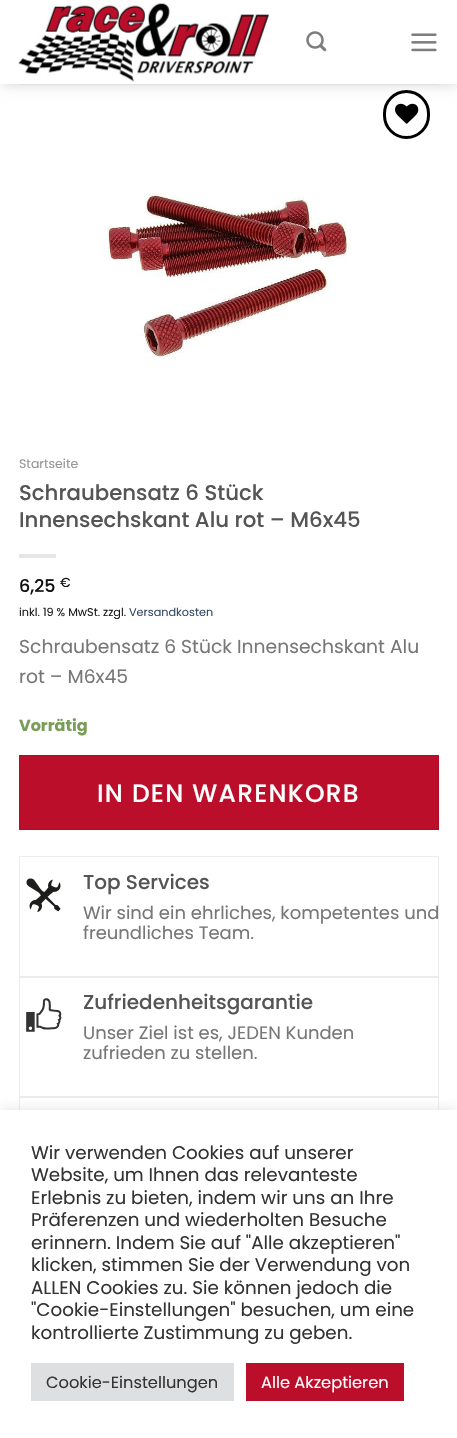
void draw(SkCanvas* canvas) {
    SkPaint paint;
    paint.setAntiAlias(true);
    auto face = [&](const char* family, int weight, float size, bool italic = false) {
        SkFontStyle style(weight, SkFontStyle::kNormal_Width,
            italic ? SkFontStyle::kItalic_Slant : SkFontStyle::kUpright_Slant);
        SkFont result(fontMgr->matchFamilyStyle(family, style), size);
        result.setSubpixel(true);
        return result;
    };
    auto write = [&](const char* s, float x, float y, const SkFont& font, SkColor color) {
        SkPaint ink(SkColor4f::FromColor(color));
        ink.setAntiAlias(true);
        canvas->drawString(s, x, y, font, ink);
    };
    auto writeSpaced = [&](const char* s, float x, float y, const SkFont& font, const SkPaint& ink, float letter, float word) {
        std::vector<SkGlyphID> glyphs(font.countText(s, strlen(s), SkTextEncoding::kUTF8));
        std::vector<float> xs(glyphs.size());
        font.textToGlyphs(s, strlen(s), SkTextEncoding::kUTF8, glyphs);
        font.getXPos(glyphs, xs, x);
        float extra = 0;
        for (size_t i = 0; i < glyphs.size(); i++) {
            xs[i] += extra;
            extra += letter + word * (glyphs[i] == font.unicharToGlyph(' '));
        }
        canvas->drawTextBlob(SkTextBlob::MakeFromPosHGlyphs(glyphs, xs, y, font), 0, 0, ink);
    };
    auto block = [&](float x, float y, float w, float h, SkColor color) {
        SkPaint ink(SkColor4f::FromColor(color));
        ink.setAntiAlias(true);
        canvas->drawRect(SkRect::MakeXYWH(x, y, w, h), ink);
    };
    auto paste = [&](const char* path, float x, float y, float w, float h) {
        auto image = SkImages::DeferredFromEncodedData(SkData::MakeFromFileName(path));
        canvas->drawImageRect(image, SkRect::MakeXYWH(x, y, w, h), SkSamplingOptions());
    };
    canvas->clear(SK_ColorWHITE);
    paint.setStyle(SkPaint::kStroke_Style);
    paint.setStrokeWidth(3);
    paint.setColor(SK_ColorBLACK);
    canvas->drawRoundRect(SkRect::MakeXYWH(384.5f, 91.5f, 44, 46), 22, 22, paint);
    paste("pic4.png", 395, 103, 24, 21);
    canvas->save();
    canvas->clipPath(SkPathBuilder(SkPathFillType::kEvenOdd).moveTo(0, 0).lineTo(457, 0).lineTo(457, 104).lineTo(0, 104).close().moveTo(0, 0).lineTo(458, 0).lineTo(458, 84).lineTo(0, 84).close().detach(), true);
    paint.setStyle(SkPaint::kFill_Style);
    paint.setColor(SkColorSetARGB(38, 0, 0, 0));
    paint.setMaskFilter(SkMaskFilter::MakeBlur(kNormal_SkBlurStyle, 6));
    canvas->drawRect(SkRect::MakeXYWH(1, 1, 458, 84), paint);
    paint.setMaskFilter(nullptr);
    canvas->restore();
    paste("pic1.png", 18, 3, 251, 79);
    paste("pic2.png", 306, 31, 21, 21);
    paste("pic3.png", 411, 33, 26, 19);
    block(19, 84, 420, 1, SkColorSetRGB(223, 223, 223));
    block(1, 83, 456, 1, SkColorSetARGB(230, 255, 255, 255));
    paste("pic5.png", 103, 193, 247, 168);
    auto kFont1 = face("Poppins", 400, 12.5f);
    write("Startseite", 19, 468, kFont1, SkColorSetRGB(148, 148, 148));
    auto kFont2 = face("Poppins", 500, 21.25f);
    write("Schraubensatz 6 Stück", 19, 500, kFont2, SkColorSetRGB(85, 85, 85));
    write("Innensechskant Alu rot – M6x45", 19, 527, kFont2, SkColorSetRGB(85, 85, 85));
    block(19, 554, 37, 4, SkColorSetRGB(230, 230, 230));
    auto kFont3 = face("Poppins", 500, 17.5f);
    write("6,25", 19, 592, kFont3, SkColorSetRGB(17, 17, 17));
    auto kFont4 = face("Poppins", 400, 13);
    write("€", 60, 587, kFont4, SkColorSetRGB(17, 17, 17));
    auto kFont5 = face("Poppins", 400, 11.25f);
    write("inkl. 19 % MwSt. zzgl.", 19, 616, kFont5, SkColorSetRGB(28, 28, 28));
    write("Versandkosten", 129, 616, kFont5, SkColorSetRGB(51, 72, 98));
    auto kFont6 = face("Poppins", 400, 18.75f);
    write("Schraubensatz 6 Stück Innensechskant Alu", 19, 653, kFont6, SkColorSetRGB(119, 119, 119));
    write("rot – M6x45", 19, 683, kFont6, SkColorSetRGB(119, 119, 119));
    auto kFont7 = face("Poppins", 700, 16);
    write("Vorrätig", 19, 731, kFont7, SkColorSetRGB(122, 156, 89));
    paint.setColor(SkColorSetRGB(187, 14, 42));
    canvas->drawRect(SkRect::MakeXYWH(19.5f, 755.5f, 419, 74), paint);
    paint.setStyle(SkPaint::kStroke_Style);
    paint.setStrokeWidth(1);
    paint.setColor(SkColorSetRGB(178, 13, 40));
    canvas->drawRect(SkRect::MakeXYWH(19.5f, 755.5f, 419, 74), paint);
    auto kFont8 = face("Poppins", 500, 25);
    paint.setStyle(SkPaint::kFill_Style);
    paint.setColor(SK_ColorWHITE);
    writeSpaced("IN DEN WARENKORB", 97, 802, kFont8, paint, 1.25f, 0);
    paint.setStyle(SkPaint::kStroke_Style);
    paint.setColor(SkColorSetRGB(236, 236, 236));
    canvas->drawRect(SkRect::MakeXYWH(19.5f, 856.5f, 419, 121), paint);
    paste("pic6.png", 26, 878, 35, 35);
    auto kFont9 = face("Poppins", 500, 20);
    write("Top Services", 83, 889, kFont9, SkColorSetRGB(85, 85, 85));
    auto kFont10 = face("Poppins", 400, 18);
    write("Wir sind ein ehrliches, kompetentes und", 83, 919, kFont10, SkColorSetRGB(119, 119, 119));
    write("freundliches Team.", 83, 939, kFont10, SkColorSetRGB(119, 119, 119));
    canvas->drawRect(SkRect::MakeXYWH(19.5f, 976.5f, 419, 121), paint);
    paste("pic7.png", 26, 998, 36, 34);
    write("Zufriedenheitsgarantie", 83, 1009, kFont9, SkColorSetRGB(85, 85, 85));
    write("Unser Ziel ist es, JEDEN Kunden", 83, 1039, kFont10, SkColorSetRGB(119, 119, 119));
    write("zufrieden zu stellen.", 83, 1059, kFont10, SkColorSetRGB(119, 119, 119));
    canvas->drawRect(SkRect::MakeXYWH(19.5f, 1096.5f, 419, 141), paint);
    paint.setStyle(SkPaint::kFill_Style);
    paint.setColor(SkColorSetARGB(77, 172, 171, 171));
    paint.setMaskFilter(SkMaskFilter::MakeBlur(kNormal_SkBlurStyle, 6));
    canvas->drawRect(SkRect::MakeXYWH(0, 1109, 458, 329), paint);
    paint.setMaskFilter(nullptr);
    block(0, 1110, 457, 328, SK_ColorWHITE);
    auto kFont11 = face("Poppins", 400, 18.3f);
    write("Wir verwenden Cookies auf unserer", 31, 1159, kFont11, SkColorSetRGB(51, 51, 51));
    write("Website, um Ihnen das relevanteste", 31, 1181, kFont11, SkColorSetRGB(51, 51, 51));
    write("Erlebnis zu bieten, indem wir uns an Ihre", 31, 1204, kFont11, SkColorSetRGB(51, 51, 51));
    write("Präferenzen und wiederholten Besuche", 31, 1226, kFont11, SkColorSetRGB(51, 51, 51));
    write("erinnern. Indem Sie auf \"Alle akzeptieren\"", 31, 1249, kFont11, SkColorSetRGB(51, 51, 51));
    write("klicken, stimmen Sie der Verwendung von", 31, 1271, kFont11, SkColorSetRGB(51, 51, 51));
    write("ALLEN Cookies zu. Sie können jedoch die", 31, 1294, kFont11, SkColorSetRGB(51, 51, 51));
    write("\"Cookie-Einstellungen\" besuchen, um eine", 31, 1316, kFont11, SkColorSetRGB(51, 51, 51));
    write("kontrollierte Zustimmung zu geben.", 31, 1339, kFont11, SkColorSetRGB(51, 51, 51));
    block(31, 1363, 203, 38, SkColorSetRGB(222, 223, 224));
    auto kFont12 = face("Poppins", 400, 16.25f);
    write("Cookie-Einstellungen", 46, 1388, kFont12, SkColorSetRGB(51, 51, 51));
    block(246, 1363, 158, 38, SkColorSetRGB(187, 14, 42));
    write("Alle Akzeptieren", 261, 1388, kFont12, SK_ColorWHITE);
}
